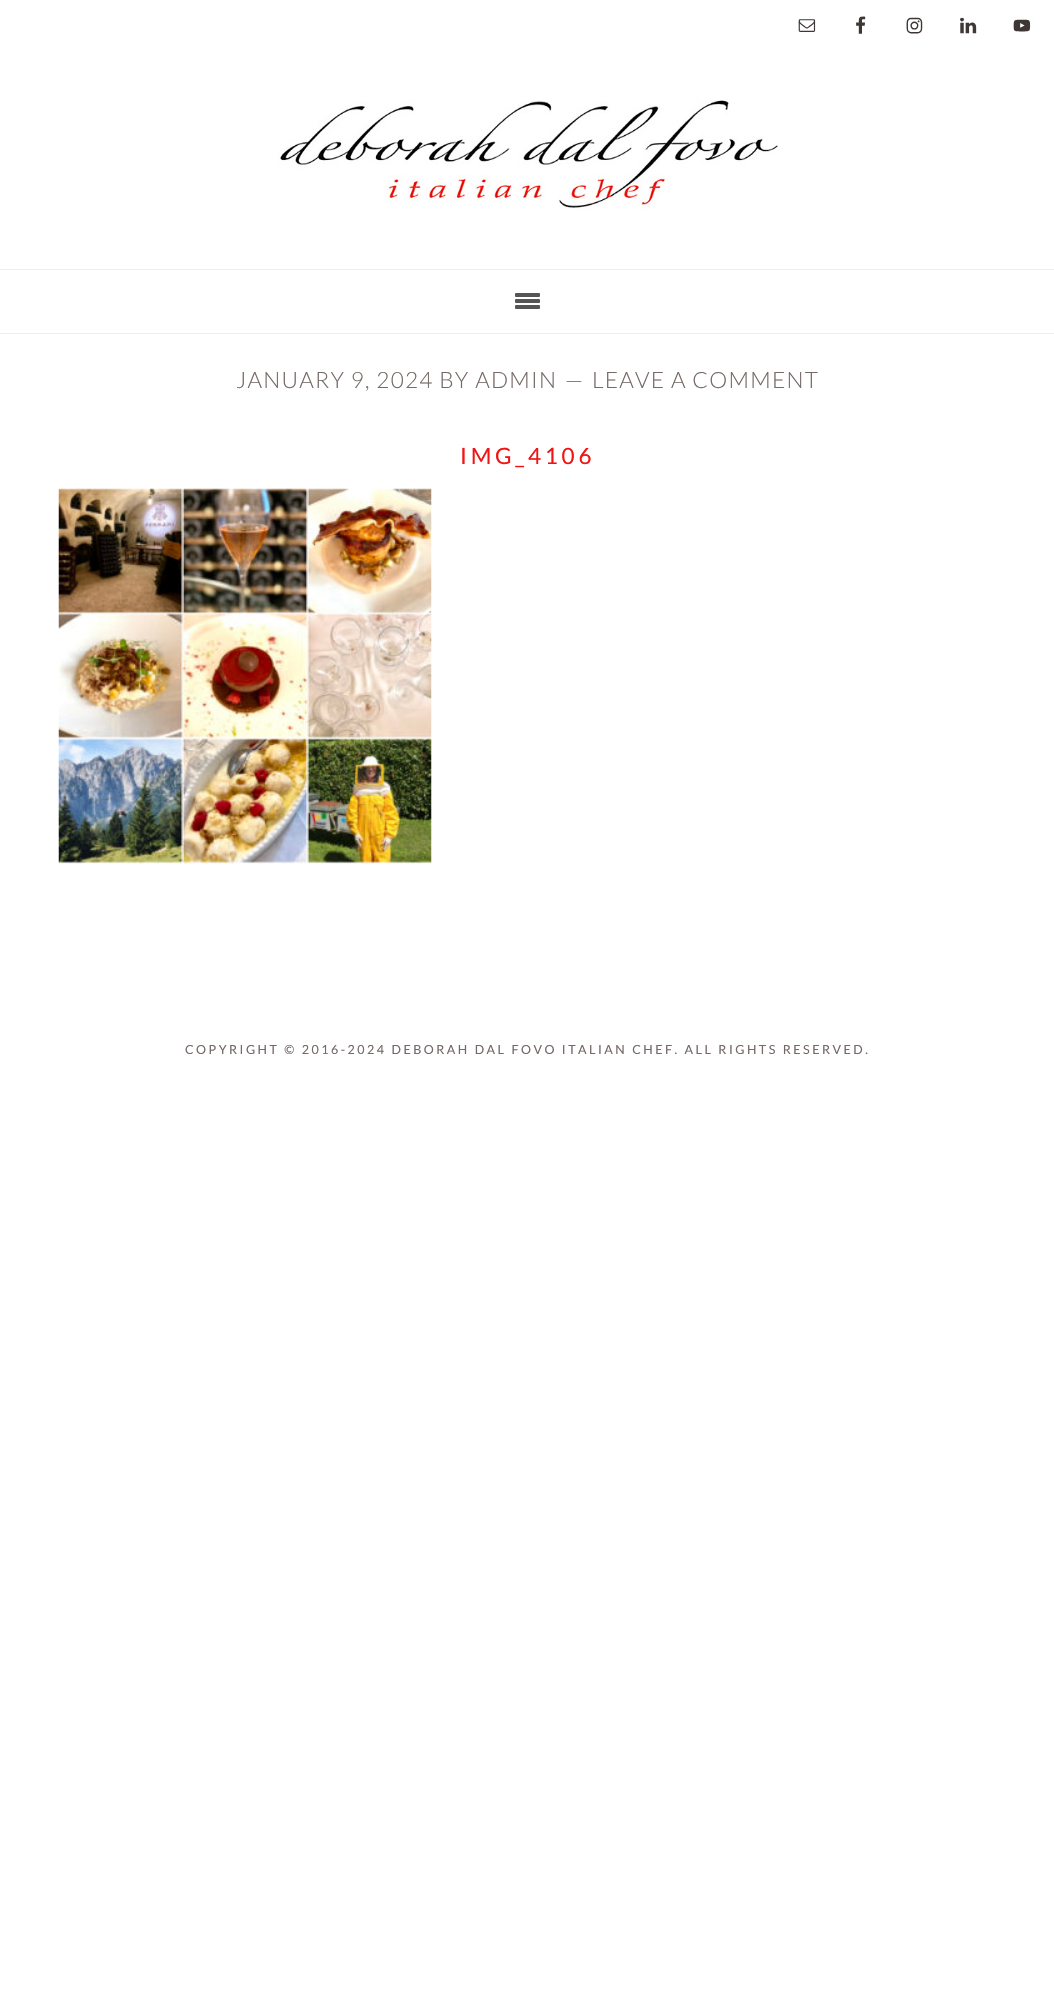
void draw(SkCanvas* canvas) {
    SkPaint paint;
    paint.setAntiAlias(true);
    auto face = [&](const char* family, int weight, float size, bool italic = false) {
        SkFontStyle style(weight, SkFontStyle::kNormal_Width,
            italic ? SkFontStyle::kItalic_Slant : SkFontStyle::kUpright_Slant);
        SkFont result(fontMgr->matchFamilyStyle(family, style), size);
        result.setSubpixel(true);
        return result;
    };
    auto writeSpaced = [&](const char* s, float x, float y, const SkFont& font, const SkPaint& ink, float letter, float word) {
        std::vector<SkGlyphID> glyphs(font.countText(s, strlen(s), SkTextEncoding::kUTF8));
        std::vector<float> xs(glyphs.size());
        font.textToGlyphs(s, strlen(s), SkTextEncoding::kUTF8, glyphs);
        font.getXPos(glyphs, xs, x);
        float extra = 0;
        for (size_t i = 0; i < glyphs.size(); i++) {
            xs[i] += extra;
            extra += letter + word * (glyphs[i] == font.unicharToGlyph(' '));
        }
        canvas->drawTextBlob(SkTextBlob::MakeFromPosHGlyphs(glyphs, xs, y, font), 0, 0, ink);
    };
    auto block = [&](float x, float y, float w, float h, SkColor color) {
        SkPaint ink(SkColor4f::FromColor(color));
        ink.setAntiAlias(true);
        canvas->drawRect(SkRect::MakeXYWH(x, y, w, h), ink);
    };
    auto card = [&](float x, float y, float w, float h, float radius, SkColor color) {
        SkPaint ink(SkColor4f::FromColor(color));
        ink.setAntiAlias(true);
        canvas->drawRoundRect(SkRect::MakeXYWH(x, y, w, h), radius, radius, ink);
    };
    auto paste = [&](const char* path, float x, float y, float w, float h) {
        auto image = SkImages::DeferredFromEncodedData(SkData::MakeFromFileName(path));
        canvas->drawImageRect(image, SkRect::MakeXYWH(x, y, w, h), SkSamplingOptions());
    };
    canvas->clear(SK_ColorWHITE);
    paste("pic1.png", 798, 19, 18, 13);
    paste("pic2.png", 856, 16, 10, 18);
    paste("pic3.png", 906, 17, 17, 17);
    paste("pic4.png", 960, 17, 17, 17);
    paste("pic5.png", 1013, 19, 18, 13);
    paste("pic6.png", 278, 100, 500, 110);
    block(0, 269, 1054, 1, SkColorSetRGB(238, 238, 238));
    block(0, 333, 1054, 1, SkColorSetRGB(238, 238, 238));
    card(515, 299, 25, 4, 1, SkColorSetRGB(85, 85, 85));
    card(515, 293, 25, 4, 1, SkColorSetRGB(85, 85, 85));
    card(515, 305, 25, 4, 1, SkColorSetRGB(85, 85, 85));
    auto kFont1 = face("Lato", 300, 22.5f);
    paint.setColor(SkColorSetRGB(117, 104, 102));
    writeSpaced("JANUARY 9, 2024 BY ADMIN", 236, 388, kFont1, paint, 1.25f, 0);
    writeSpaced("—", 565, 388, kFont1, paint, 1.25f, 0);
    writeSpaced("LEAVE A COMMENT", 592, 388, kFont1, paint, 1.25f, 0);
    auto kFont2 = face("Lato", 400, 22.5f);
    paint.setColor(SkColorSetRGB(242, 20, 20));
    writeSpaced("IMG_4106", 460, 464, kFont2, paint, 3.75f, 0);
    paste("pic7.png", 58, 488, 374, 376);
    auto kFont3 = face("Lato", 400, 12.5f);
    paint.setColor(SkColorSetRGB(117, 104, 102));
    writeSpaced("COPYRIGHT © 2016-2024 DEBORAH DAL FOVO ITALIAN CHEF. ALL RIGHTS RESERVED.", 185, 1054, kFont3, paint, 2.5f, 0);
}
